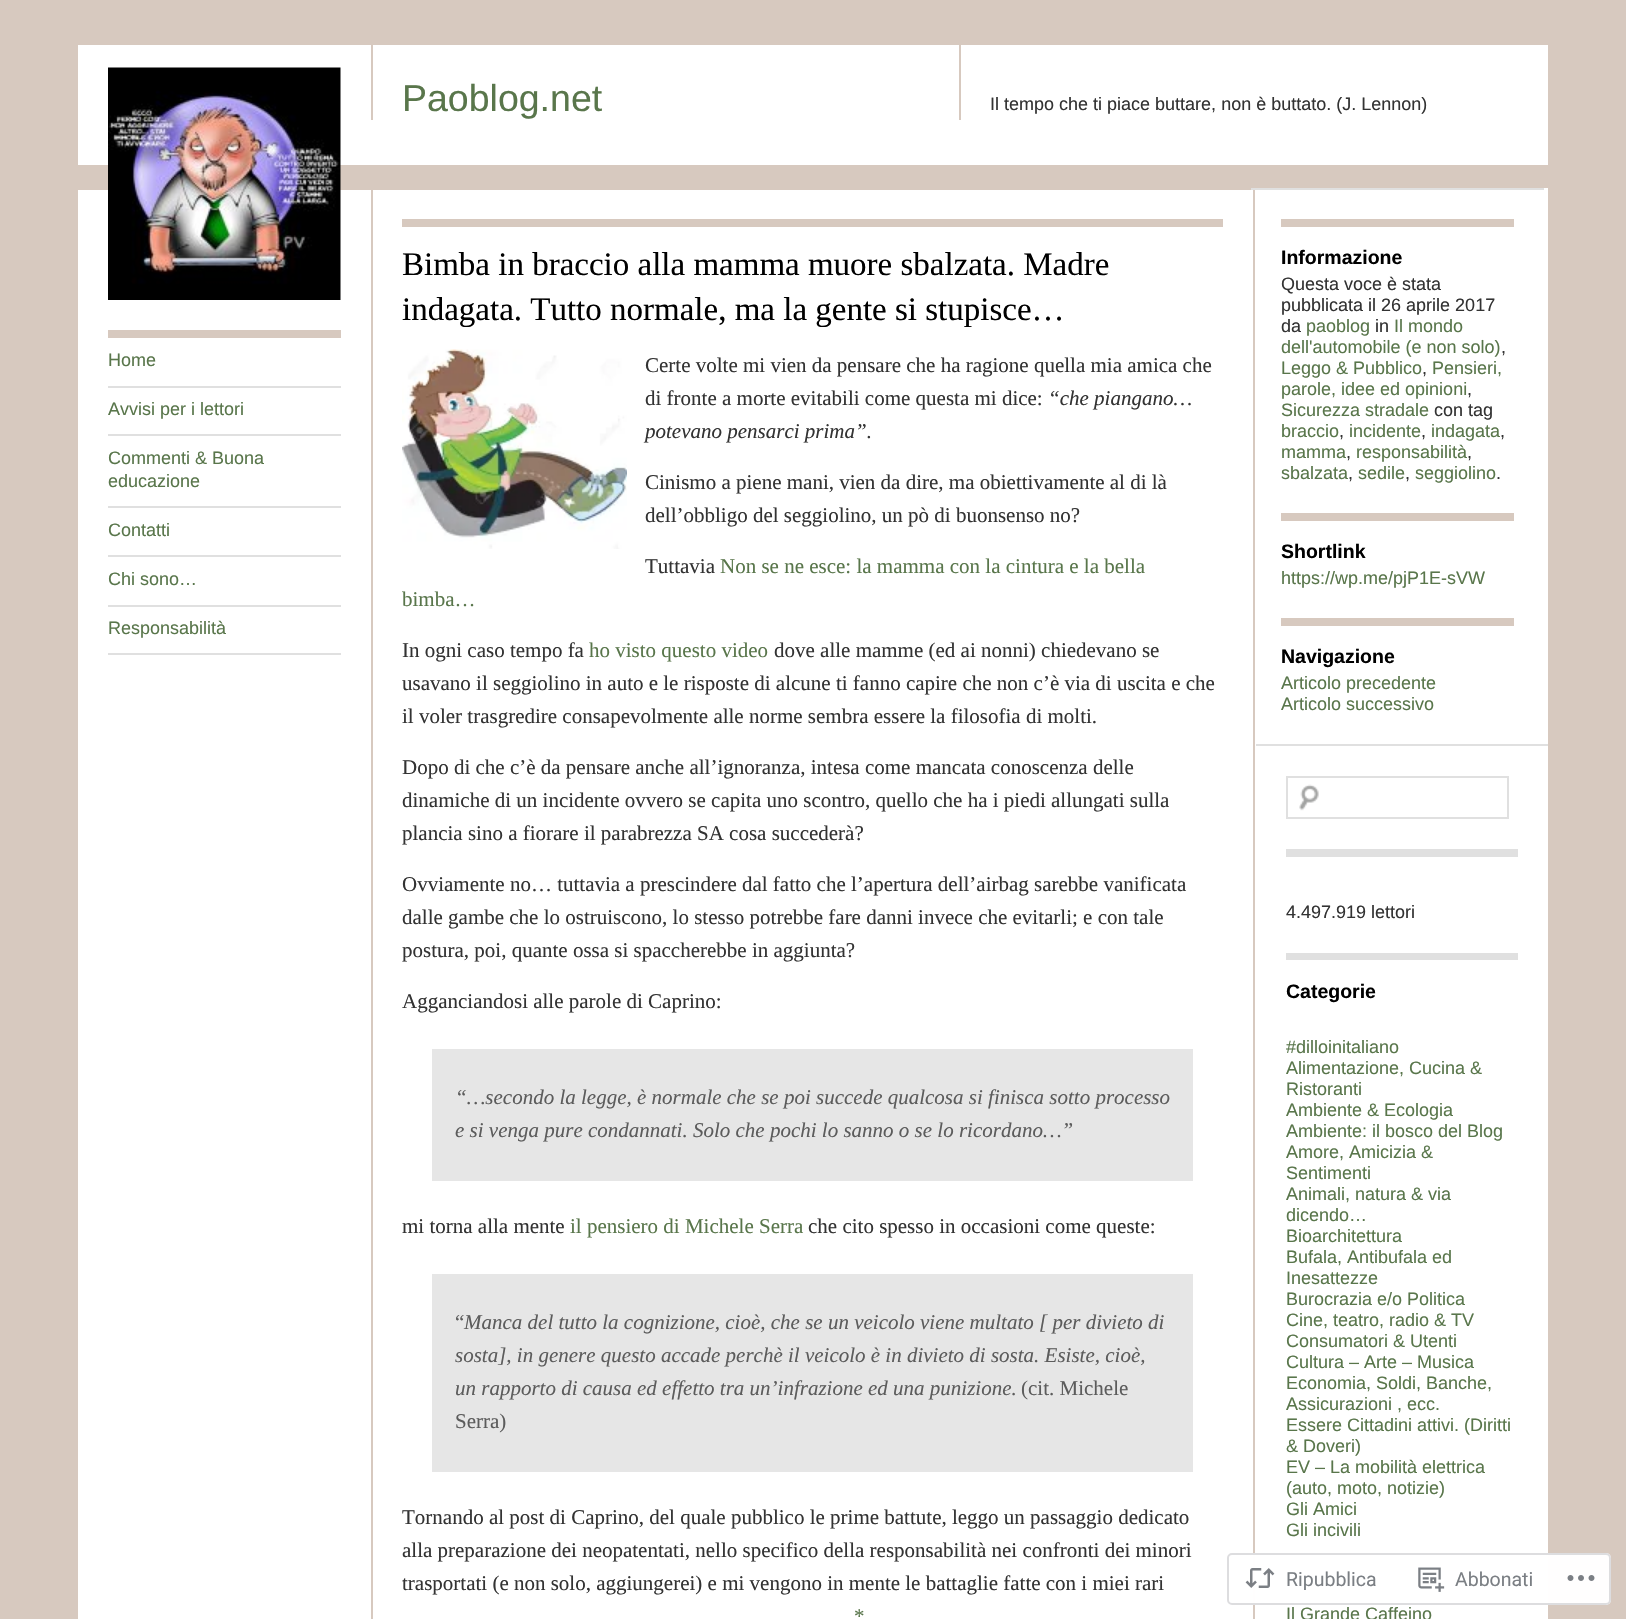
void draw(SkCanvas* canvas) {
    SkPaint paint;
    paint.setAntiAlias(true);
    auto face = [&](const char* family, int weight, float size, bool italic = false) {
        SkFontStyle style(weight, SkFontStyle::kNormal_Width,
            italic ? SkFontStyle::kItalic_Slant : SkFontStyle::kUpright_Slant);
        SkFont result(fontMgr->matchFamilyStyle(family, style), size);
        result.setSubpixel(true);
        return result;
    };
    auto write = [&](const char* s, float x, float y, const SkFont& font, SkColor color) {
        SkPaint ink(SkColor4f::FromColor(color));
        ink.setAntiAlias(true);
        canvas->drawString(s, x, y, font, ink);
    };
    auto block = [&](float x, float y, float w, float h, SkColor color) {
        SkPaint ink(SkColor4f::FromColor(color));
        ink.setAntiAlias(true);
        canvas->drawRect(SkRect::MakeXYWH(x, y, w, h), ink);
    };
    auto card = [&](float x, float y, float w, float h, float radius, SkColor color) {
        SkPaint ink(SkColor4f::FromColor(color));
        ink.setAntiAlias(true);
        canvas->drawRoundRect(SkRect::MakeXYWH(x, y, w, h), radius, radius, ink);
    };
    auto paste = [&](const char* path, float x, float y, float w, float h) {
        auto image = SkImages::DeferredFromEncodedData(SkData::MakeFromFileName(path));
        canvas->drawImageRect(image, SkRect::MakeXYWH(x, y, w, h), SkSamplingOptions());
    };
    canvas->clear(SkColorSetRGB(215, 201, 191));
    block(78, 45, 1470, 120, SK_ColorWHITE);
    block(78, 188, 1470, 1431, SK_ColorWHITE);
    block(78, 188, 1176, 2, SkColorSetRGB(215, 201, 191));
    paste("pic1.png", 108, 67, 233, 233);
    block(371, 45, 2, 75, SkColorSetRGB(215, 201, 191));
    auto kFont1 = face("Liberation Sans", 400, 37.5f);
    write("Paoblog.net", 402, 111, kFont1, SkColorSetRGB(89, 118, 75));
    block(959, 45, 2, 75, SkColorSetRGB(215, 201, 191));
    auto kFont2 = face("Liberation Sans", 400, 18);
    write("Il tempo che ti piace buttare, non è buttato. (J. Lennon)", 990, 110, kFont2, SkColorSetRGB(51, 51, 51));
    block(108, 330, 233, 8, SkColorSetRGB(215, 201, 191));
    block(108, 386, 233, 2, SkColorSetRGB(224, 224, 224));
    write("Home", 108, 366, kFont2, SkColorSetRGB(89, 118, 75));
    block(108, 434, 233, 2, SkColorSetRGB(224, 224, 224));
    write("Avvisi per i lettori", 108, 415, kFont2, SkColorSetRGB(89, 118, 75));
    block(108, 506, 233, 2, SkColorSetRGB(224, 224, 224));
    write("Commenti & Buona", 108, 464, kFont2, SkColorSetRGB(89, 118, 75));
    write("educazione", 108, 487, kFont2, SkColorSetRGB(89, 118, 75));
    block(108, 555, 233, 2, SkColorSetRGB(224, 224, 224));
    write("Contatti", 108, 536, kFont2, SkColorSetRGB(89, 118, 75));
    block(108, 605, 233, 2, SkColorSetRGB(224, 224, 224));
    write("Chi sono…", 108, 585, kFont2, SkColorSetRGB(89, 118, 75));
    block(108, 653, 233, 2, SkColorSetRGB(224, 224, 224));
    write("Responsabilità", 108, 634, kFont2, SkColorSetRGB(89, 118, 75));
    block(1253, 188, 2, 1431, SkColorSetRGB(215, 201, 191));
    block(371, 188, 2, 1431, SkColorSetRGB(215, 201, 191));
    block(402, 219, 821, 8, SkColorSetRGB(215, 201, 191));
    auto kFont3 = face("Liberation Serif", 400, 33);
    write("Bimba in braccio alla mamma muore sbalzata. Madre", 402, 275, kFont3, SK_ColorBLACK);
    write("indagata. Tutto normale, ma la gente si stupisce…", 402, 320, kFont3, SK_ColorBLACK);
    paste("pic2.png", 402, 349, 225, 200);
    auto kFont4 = face("Liberation Serif", 400, 21);
    write("Certe volte mi vien da pensare che ha ragione quella mia amica che", 645, 372, kFont4, SkColorSetRGB(51, 51, 51));
    write("di fronte a morte evitabili come questa mi dice:", 645, 405, kFont4, SkColorSetRGB(51, 51, 51));
    auto kFont5 = face("Liberation Serif", 400, 21, true);
    write("“che piangano…", 1048, 405, kFont5, SkColorSetRGB(51, 51, 51));
    write("potevano pensarci prima”.", 645, 438, kFont5, SkColorSetRGB(51, 51, 51));
    write("Cinismo a piene mani, vien da dire, ma obiettivamente al di là", 645, 489, kFont4, SkColorSetRGB(51, 51, 51));
    write("dell’obbligo del seggiolino, un pò di buonsenso no?", 645, 522, kFont4, SkColorSetRGB(51, 51, 51));
    write("Tuttavia", 645, 573, kFont4, SkColorSetRGB(51, 51, 51));
    write("Non se ne esce: la mamma con la cintura e la bella", 720, 573, kFont4, SkColorSetRGB(89, 118, 75));
    write("bimba…", 402, 606, kFont4, SkColorSetRGB(89, 118, 75));
    write("In ogni caso tempo fa", 402, 657, kFont4, SkColorSetRGB(51, 51, 51));
    write("ho visto questo video", 589, 657, kFont4, SkColorSetRGB(89, 118, 75));
    write("dove alle mamme (ed ai nonni) chiedevano se", 774, 657, kFont4, SkColorSetRGB(51, 51, 51));
    write("usavano il seggiolino in auto e le risposte di alcune ti fanno capire che non c’è via di uscita e che", 402, 690, kFont4, SkColorSetRGB(51, 51, 51));
    write("il voler trasgredire consapevolmente alle norme sembra essere la filosofia di molti.", 402, 723, kFont4, SkColorSetRGB(51, 51, 51));
    write("Dopo di che c’è da pensare anche all’ignoranza, intesa come mancata conoscenza delle", 402, 774, kFont4, SkColorSetRGB(51, 51, 51));
    write("dinamiche di un incidente ovvero se capita uno scontro, quello che ha i piedi allungati sulla", 402, 807, kFont4, SkColorSetRGB(51, 51, 51));
    write("plancia sino a fiorare il parabrezza SA cosa succederà?", 402, 840, kFont4, SkColorSetRGB(51, 51, 51));
    write("Ovviamente no… tuttavia a prescindere dal fatto che l’apertura dell’airbag sarebbe vanificata", 402, 891, kFont4, SkColorSetRGB(51, 51, 51));
    write("dalle gambe che lo ostruiscono, lo stesso potrebbe fare danni invece che evitarli; e con tale", 402, 924, kFont4, SkColorSetRGB(51, 51, 51));
    write("postura, poi, quante ossa si spaccherebbe in aggiunta?", 402, 957, kFont4, SkColorSetRGB(51, 51, 51));
    write("Agganciandosi alle parole di Caprino:", 402, 1008, kFont4, SkColorSetRGB(51, 51, 51));
    block(432, 1049, 761, 132, SkColorSetRGB(230, 230, 230));
    write("“…secondo la legge, è normale che se poi succede qualcosa si finisca sotto processo", 455, 1104, kFont5, SkColorSetRGB(92, 92, 92));
    write("e si venga pure condannati. Solo che pochi lo sanno o se lo ricordano…”", 455, 1137, kFont5, SkColorSetRGB(92, 92, 92));
    write("mi torna alla mente", 402, 1233, kFont4, SkColorSetRGB(51, 51, 51));
    write("il pensiero di Michele Serra", 570, 1233, kFont4, SkColorSetRGB(89, 118, 75));
    write("che cito spesso in occasioni come queste:", 808, 1233, kFont4, SkColorSetRGB(51, 51, 51));
    block(432, 1274, 761, 198, SkColorSetRGB(230, 230, 230));
    write("“", 455, 1329, kFont4, SkColorSetRGB(92, 92, 92));
    write("Manca del tutto la cognizione, cioè, che se un veicolo viene multato [ per divieto di", 464, 1329, kFont5, SkColorSetRGB(92, 92, 92));
    write("sosta], in genere questo accade perchè il veicolo è in divieto di sosta. Esiste, cioè,", 455, 1362, kFont5, SkColorSetRGB(92, 92, 92));
    write("un rapporto di causa ed effetto tra un’infrazione ed una punizione.", 455, 1395, kFont5, SkColorSetRGB(92, 92, 92));
    write("(cit. Michele", 1021, 1395, kFont4, SkColorSetRGB(92, 92, 92));
    write("Serra)", 455, 1428, kFont4, SkColorSetRGB(92, 92, 92));
    write("Tornando al post di Caprino, del quale pubblico le prime battute, leggo un passaggio dedicato", 402, 1524, kFont4, SkColorSetRGB(51, 51, 51));
    write("alla preparazione dei neopatentati, nello specifico della responsabilità nei confronti dei minori", 402, 1557, kFont4, SkColorSetRGB(51, 51, 51));
    write("trasportati (e non solo, aggiungerei) e mi vengono in mente le battaglie fatte con i miei rari", 402, 1590, kFont4, SkColorSetRGB(51, 51, 51));
    write("*", 854, 1623, kFont4, SkColorSetRGB(89, 118, 75));
    block(1251, 188, 293, 2, SkColorSetRGB(224, 224, 224));
    block(1281, 219, 233, 8, SkColorSetRGB(215, 201, 191));
    auto kFont6 = face("Liberation Sans", 700, 19.5f);
    write("Informazione", 1281, 264, kFont6, SK_ColorBLACK);
    write("Questa voce è stata", 1281, 290, kFont2, SkColorSetRGB(51, 51, 51));
    write("pubblicata il 26 aprile 2017", 1281, 311, kFont2, SkColorSetRGB(51, 51, 51));
    write("da", 1281, 332, kFont2, SkColorSetRGB(51, 51, 51));
    write("paoblog", 1306, 332, kFont2, SkColorSetRGB(89, 118, 75));
    write("in", 1375, 332, kFont2, SkColorSetRGB(51, 51, 51));
    write("Il mondo", 1394, 332, kFont2, SkColorSetRGB(89, 118, 75));
    write("dell'automobile (e non solo)", 1281, 353, kFont2, SkColorSetRGB(89, 118, 75));
    write(",", 1501, 353, kFont2, SkColorSetRGB(51, 51, 51));
    write("Leggo & Pubblico", 1281, 374, kFont2, SkColorSetRGB(89, 118, 75));
    write(",", 1422, 374, kFont2, SkColorSetRGB(51, 51, 51));
    write("Pensieri,", 1432, 374, kFont2, SkColorSetRGB(89, 118, 75));
    write("parole, idee ed opinioni", 1281, 395, kFont2, SkColorSetRGB(89, 118, 75));
    write(",", 1467, 395, kFont2, SkColorSetRGB(51, 51, 51));
    write("Sicurezza stradale", 1281, 416, kFont2, SkColorSetRGB(89, 118, 75));
    write("con tag", 1434, 416, kFont2, SkColorSetRGB(51, 51, 51));
    write("braccio", 1281, 437, kFont2, SkColorSetRGB(89, 118, 75));
    write(",", 1339, 437, kFont2, SkColorSetRGB(51, 51, 51));
    write("incidente", 1349, 437, kFont2, SkColorSetRGB(89, 118, 75));
    write(",", 1421, 437, kFont2, SkColorSetRGB(51, 51, 51));
    write("indagata", 1431, 437, kFont2, SkColorSetRGB(89, 118, 75));
    write(",", 1500, 437, kFont2, SkColorSetRGB(51, 51, 51));
    write("mamma", 1281, 458, kFont2, SkColorSetRGB(89, 118, 75));
    write(",", 1346, 458, kFont2, SkColorSetRGB(51, 51, 51));
    write("responsabilità", 1356, 458, kFont2, SkColorSetRGB(89, 118, 75));
    write(",", 1467, 458, kFont2, SkColorSetRGB(51, 51, 51));
    write("sbalzata", 1281, 479, kFont2, SkColorSetRGB(89, 118, 75));
    write(",", 1348, 479, kFont2, SkColorSetRGB(51, 51, 51));
    write("sedile", 1358, 479, kFont2, SkColorSetRGB(89, 118, 75));
    write(",", 1405, 479, kFont2, SkColorSetRGB(51, 51, 51));
    write("seggiolino", 1415, 479, kFont2, SkColorSetRGB(89, 118, 75));
    write(".", 1496, 479, kFont2, SkColorSetRGB(51, 51, 51));
    block(1281, 513, 233, 8, SkColorSetRGB(215, 201, 191));
    write("Shortlink", 1281, 558, kFont6, SK_ColorBLACK);
    write("https://wp.me/pjP1E-sVW", 1281, 584, kFont2, SkColorSetRGB(89, 118, 75));
    block(1281, 618, 233, 8, SkColorSetRGB(215, 201, 191));
    write("Navigazione", 1281, 663, kFont6, SK_ColorBLACK);
    write("Articolo precedente", 1281, 689, kFont2, SkColorSetRGB(89, 118, 75));
    write("Articolo successivo", 1281, 710, kFont2, SkColorSetRGB(89, 118, 75));
    block(1256, 744, 292, 2, SkColorSetRGB(224, 224, 224));
    paste("pic3.png", 1299, 784, 20, 27);
    paint.setStyle(SkPaint::kStroke_Style);
    paint.setStrokeWidth(2);
    paint.setColor(SkColorSetRGB(224, 224, 224));
    canvas->drawRect(SkRect::MakeXYWH(1287, 777, 221, 41), paint);
    block(1286, 849, 232, 8, SkColorSetRGB(224, 224, 224));
    write("4.497.919 lettori", 1286, 918, kFont2, SkColorSetRGB(51, 51, 51));
    block(1286, 953, 232, 7, SkColorSetRGB(224, 224, 224));
    write("Categorie", 1286, 998, kFont6, SK_ColorBLACK);
    write("#dilloinitaliano", 1286, 1053, kFont2, SkColorSetRGB(89, 118, 75));
    write("Alimentazione, Cucina &", 1286, 1074, kFont2, SkColorSetRGB(89, 118, 75));
    write("Ristoranti", 1286, 1095, kFont2, SkColorSetRGB(89, 118, 75));
    write("Ambiente & Ecologia", 1286, 1116, kFont2, SkColorSetRGB(89, 118, 75));
    write("Ambiente: il bosco del Blog", 1286, 1137, kFont2, SkColorSetRGB(89, 118, 75));
    write("Amore, Amicizia &", 1286, 1158, kFont2, SkColorSetRGB(89, 118, 75));
    write("Sentimenti", 1286, 1179, kFont2, SkColorSetRGB(89, 118, 75));
    write("Animali, natura & via", 1286, 1200, kFont2, SkColorSetRGB(89, 118, 75));
    write("dicendo…", 1286, 1221, kFont2, SkColorSetRGB(89, 118, 75));
    write("Bioarchitettura", 1286, 1242, kFont2, SkColorSetRGB(89, 118, 75));
    write("Bufala, Antibufala ed", 1286, 1263, kFont2, SkColorSetRGB(89, 118, 75));
    write("Inesattezze", 1286, 1284, kFont2, SkColorSetRGB(89, 118, 75));
    write("Burocrazia e/o Politica", 1286, 1305, kFont2, SkColorSetRGB(89, 118, 75));
    write("Cine, teatro, radio & TV", 1286, 1326, kFont2, SkColorSetRGB(89, 118, 75));
    write("Consumatori & Utenti", 1286, 1347, kFont2, SkColorSetRGB(89, 118, 75));
    write("Cultura – Arte – Musica", 1286, 1368, kFont2, SkColorSetRGB(89, 118, 75));
    write("Economia, Soldi, Banche,", 1286, 1389, kFont2, SkColorSetRGB(89, 118, 75));
    write("Assicurazioni , ecc.", 1286, 1410, kFont2, SkColorSetRGB(89, 118, 75));
    write("Essere Cittadini attivi. (Diritti", 1286, 1431, kFont2, SkColorSetRGB(89, 118, 75));
    write("& Doveri)", 1286, 1452, kFont2, SkColorSetRGB(89, 118, 75));
    write("EV – La mobilità elettrica", 1286, 1473, kFont2, SkColorSetRGB(89, 118, 75));
    write("(auto, moto, notizie)", 1286, 1494, kFont2, SkColorSetRGB(89, 118, 75));
    write("Gli Amici", 1286, 1515, kFont2, SkColorSetRGB(89, 118, 75));
    write("Gli incivili", 1286, 1536, kFont2, SkColorSetRGB(89, 118, 75));
    write("Il Grande Caffeino", 1286, 1620, kFont2, SkColorSetRGB(89, 118, 75));
    card(1227, 1553, 384, 52, 5, SkColorSetARGB(250, 255, 255, 255));
    paint.setColor(SkColorSetARGB(250, 220, 220, 222));
    canvas->drawRoundRect(SkRect::MakeXYWH(1228, 1554, 382, 50), 4, 4, paint);
    paste("pic4.png", 1245, 1568, 30, 20);
    auto kFont7 = face("Roboto", 400, 19.5f);
    write("Ripubblica", 1286, 1586, kFont7, SkColorSetRGB(123, 127, 132));
    paste("pic5.png", 1418, 1567, 27, 25);
    write("Abbonati", 1455, 1586, kFont7, SkColorSetRGB(123, 127, 132));
    paste("pic6.png", 1567, 1575, 28, 6);
}
